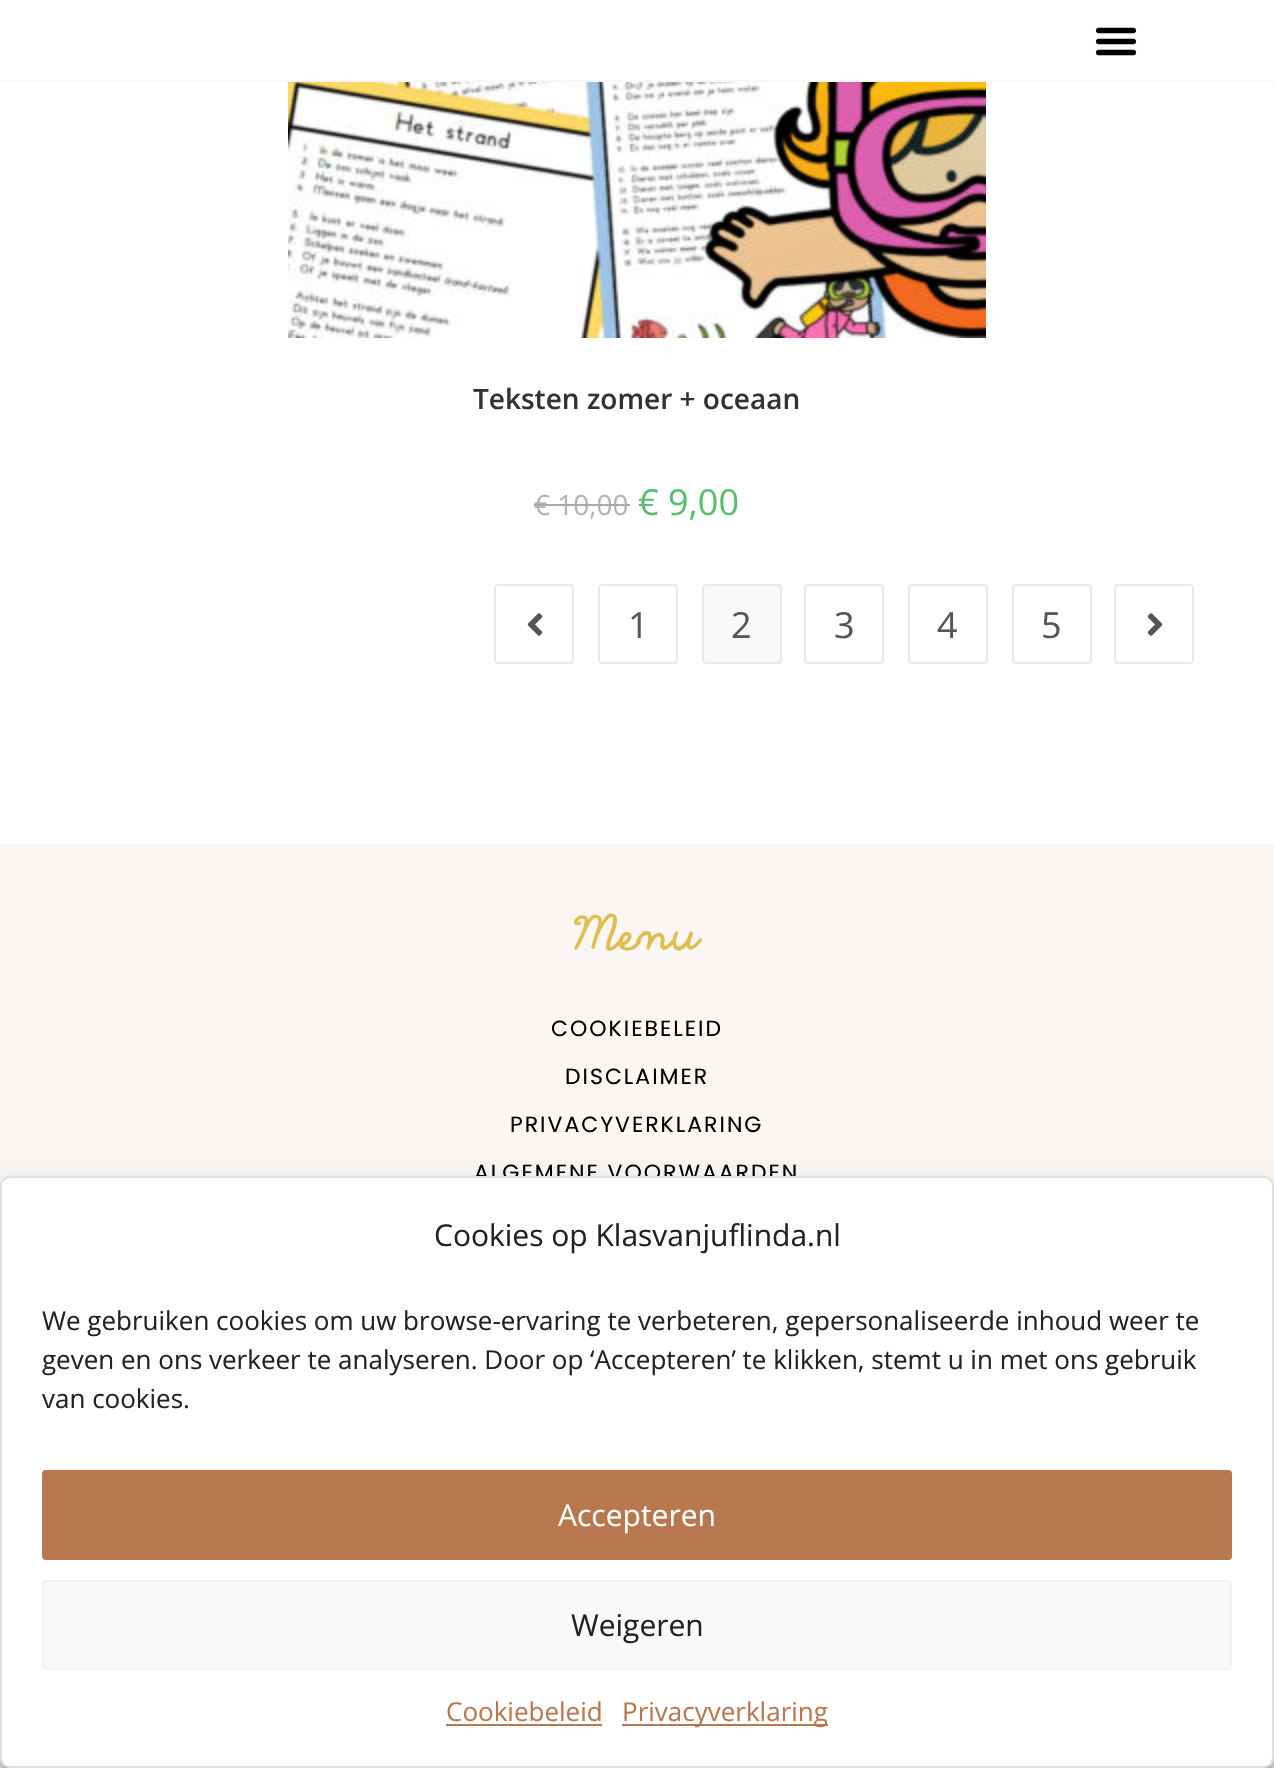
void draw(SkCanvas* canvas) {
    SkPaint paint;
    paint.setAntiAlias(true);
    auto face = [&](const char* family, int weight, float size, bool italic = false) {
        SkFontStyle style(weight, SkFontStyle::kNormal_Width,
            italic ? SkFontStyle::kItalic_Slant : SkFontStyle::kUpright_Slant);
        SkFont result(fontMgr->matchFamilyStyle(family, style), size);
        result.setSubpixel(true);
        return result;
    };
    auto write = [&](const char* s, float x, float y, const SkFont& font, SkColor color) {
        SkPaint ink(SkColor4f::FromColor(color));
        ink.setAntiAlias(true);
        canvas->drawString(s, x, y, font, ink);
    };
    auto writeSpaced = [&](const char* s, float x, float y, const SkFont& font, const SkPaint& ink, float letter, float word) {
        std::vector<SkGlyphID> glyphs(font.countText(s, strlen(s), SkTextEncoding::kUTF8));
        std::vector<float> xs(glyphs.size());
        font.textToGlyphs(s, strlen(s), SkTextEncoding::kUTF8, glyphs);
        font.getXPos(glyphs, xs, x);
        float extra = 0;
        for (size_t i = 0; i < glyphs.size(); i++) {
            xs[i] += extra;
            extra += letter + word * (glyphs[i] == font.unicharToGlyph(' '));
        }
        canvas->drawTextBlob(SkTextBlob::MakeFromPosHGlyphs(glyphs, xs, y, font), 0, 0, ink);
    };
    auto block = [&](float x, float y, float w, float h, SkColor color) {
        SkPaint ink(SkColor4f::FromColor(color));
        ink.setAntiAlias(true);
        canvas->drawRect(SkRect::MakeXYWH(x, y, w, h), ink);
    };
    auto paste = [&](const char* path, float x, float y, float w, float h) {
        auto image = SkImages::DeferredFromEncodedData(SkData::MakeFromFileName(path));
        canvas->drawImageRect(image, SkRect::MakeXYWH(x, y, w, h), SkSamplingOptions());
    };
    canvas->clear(SK_ColorWHITE);
    block(0, 80, 1274, 2, SkColorSetRGB(249, 246, 244));
    paste("pic1.png", 1095, 27, 42, 29);
    paste("pic2.png", 288, 82, 698, 256);
    auto kFont1 = face("Open Sans", 600, 28);
    write("Teksten zomer + oceaan", 473, 409, kFont1, SkColorSetRGB(51, 51, 51));
    auto kFont2 = face("Open Sans", 400, 28);
    write("€ 10,00", 534, 515, kFont2, SkColorSetRGB(179, 179, 179));
    block(534, 504, 96, 2, SkColorSetRGB(170, 170, 170));
    auto kFont3 = face("Open Sans", 400, 36);
    write("€ 9,00", 638, 515, kFont3, SkColorSetRGB(87, 191, 109));
    paint.setStyle(SkPaint::kStroke_Style);
    paint.setStrokeWidth(2);
    paint.setColor(SkColorSetRGB(233, 233, 233));
    canvas->drawRoundRect(SkRect::MakeXYWH(495, 585, 78, 78), 3, 3, paint);
    paste("pic3.png", 527, 613, 16, 23);
    canvas->drawRoundRect(SkRect::MakeXYWH(599, 585, 78, 78), 3, 3, paint);
    write("1", 628, 638, kFont3, SkColorSetRGB(85, 85, 85));
    paint.setStyle(SkPaint::kFill_Style);
    paint.setColor(SkColorSetRGB(248, 248, 248));
    canvas->drawRoundRect(SkRect::MakeXYWH(703, 585, 78, 78), 3, 3, paint);
    paint.setStyle(SkPaint::kStroke_Style);
    paint.setColor(SkColorSetRGB(233, 233, 233));
    canvas->drawRoundRect(SkRect::MakeXYWH(703, 585, 78, 78), 3, 3, paint);
    write("2", 731, 638, kFont3, SkColorSetRGB(85, 85, 85));
    canvas->drawRoundRect(SkRect::MakeXYWH(805, 585, 78, 78), 3, 3, paint);
    write("3", 834, 638, kFont3, SkColorSetRGB(85, 85, 85));
    canvas->drawRoundRect(SkRect::MakeXYWH(909, 585, 78, 78), 3, 3, paint);
    write("4", 937, 638, kFont3, SkColorSetRGB(85, 85, 85));
    canvas->drawRoundRect(SkRect::MakeXYWH(1013, 585, 78, 78), 3, 3, paint);
    write("5", 1041, 638, kFont3, SkColorSetRGB(85, 85, 85));
    canvas->drawRoundRect(SkRect::MakeXYWH(1115, 585, 78, 78), 3, 3, paint);
    paste("pic4.png", 1147, 613, 16, 23);
    block(0, 844, 1274, 924, SkColorSetRGB(249, 246, 244));
    auto kFont4 = face("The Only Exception", 700, 40);
    write("Menu", 574, 950, kFont4, SkColorSetRGB(223, 189, 78));
    auto kFont5 = face("Poppins", 400, 22);
    paint.setStyle(SkPaint::kFill_Style);
    paint.setColor(SK_ColorBLACK);
    writeSpaced("COOKIEBELEID", 551, 1036, kFont5, paint, 2, 0);
    writeSpaced("DISCLAIMER", 565, 1084, kFont5, paint, 2, 0);
    writeSpaced("PRIVACYVERKLARING", 510, 1132, kFont5, paint, 2, 0);
    writeSpaced("ALGEMENE VOORWAARDEN", 474, 1180, kFont5, paint, 2, 0);
    paint.setColor(SkColorSetARGB(59, 0, 0, 0));
    paint.setMaskFilter(SkMaskFilter::MakeBlur(kNormal_SkBlurStyle, 6));
    canvas->drawRoundRect(SkRect::MakeXYWH(0, 1188, 1274, 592), 10, 10, paint);
    paint.setMaskFilter(nullptr);
    paint.setColor(SkColorSetARGB(48, 0, 0, 0));
    paint.setMaskFilter(SkMaskFilter::MakeBlur(kNormal_SkBlurStyle, 20));
    canvas->drawRoundRect(SkRect::MakeXYWH(0, 1196, 1274, 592), 10, 10, paint);
    paint.setMaskFilter(nullptr);
    paint.setColor(SK_ColorWHITE);
    canvas->drawRoundRect(SkRect::MakeXYWH(1, 1177, 1272, 590), 9, 9, paint);
    paint.setStyle(SkPaint::kStroke_Style);
    paint.setColor(SkColorSetRGB(224, 224, 224));
    canvas->drawRoundRect(SkRect::MakeXYWH(1, 1177, 1272, 590), 9, 9, paint);
    auto kFont6 = face("Open Sans", 400, 30);
    write("Cookies op Klasvanjuflinda.nl", 434, 1246, kFont6, SkColorSetRGB(34, 34, 34));
    auto kFont7 = face("Open Sans", 400, 26);
    write("We gebruiken cookies om uw browse-ervaring te verbeteren, gepersonaliseerde inhoud weer te", 42, 1330, kFont7, SkColorSetRGB(34, 34, 34));
    write("geven en ons verkeer te analyseren. Door op ‘Accepteren’ te klikken, stemt u in met ons gebruik", 42, 1369, kFont7, SkColorSetRGB(34, 34, 34));
    write("van cookies.", 42, 1408, kFont7, SkColorSetRGB(34, 34, 34));
    paint.setStyle(SkPaint::kFill_Style);
    paint.setColor(SkColorSetRGB(183, 119, 79));
    canvas->drawRoundRect(SkRect::MakeXYWH(43, 1471, 1188, 88), 3, 3, paint);
    paint.setStyle(SkPaint::kStroke_Style);
    canvas->drawRoundRect(SkRect::MakeXYWH(43, 1471, 1188, 88), 3, 3, paint);
    write("Accepteren", 558, 1526, kFont6, SK_ColorWHITE);
    paint.setStyle(SkPaint::kFill_Style);
    paint.setColor(SkColorSetRGB(249, 249, 249));
    canvas->drawRoundRect(SkRect::MakeXYWH(43, 1581, 1188, 88), 3, 3, paint);
    paint.setStyle(SkPaint::kStroke_Style);
    paint.setColor(SkColorSetRGB(242, 242, 242));
    canvas->drawRoundRect(SkRect::MakeXYWH(43, 1581, 1188, 88), 3, 3, paint);
    write("Weigeren", 571, 1636, kFont6, SkColorSetRGB(34, 34, 34));
    write("Cookiebeleid", 446, 1721, kFont7, SkColorSetRGB(183, 119, 79));
    block(446, 1724, 156, 2, SkColorSetRGB(183, 119, 79));
    block(622, 1724, 206, 2, SkColorSetRGB(183, 119, 79));
    write("Privacyverklaring", 622, 1721, kFont7, SkColorSetRGB(183, 119, 79));
}
